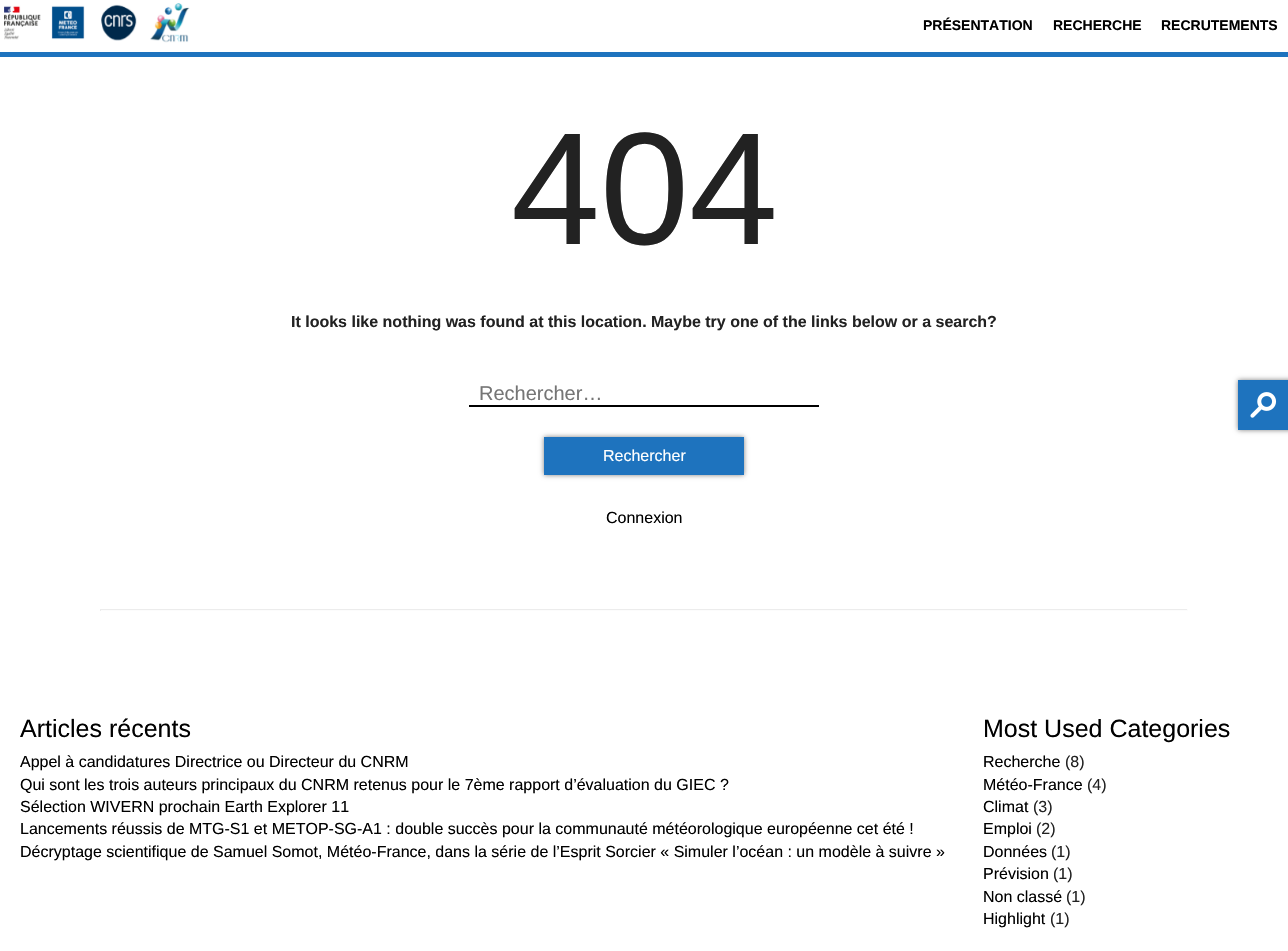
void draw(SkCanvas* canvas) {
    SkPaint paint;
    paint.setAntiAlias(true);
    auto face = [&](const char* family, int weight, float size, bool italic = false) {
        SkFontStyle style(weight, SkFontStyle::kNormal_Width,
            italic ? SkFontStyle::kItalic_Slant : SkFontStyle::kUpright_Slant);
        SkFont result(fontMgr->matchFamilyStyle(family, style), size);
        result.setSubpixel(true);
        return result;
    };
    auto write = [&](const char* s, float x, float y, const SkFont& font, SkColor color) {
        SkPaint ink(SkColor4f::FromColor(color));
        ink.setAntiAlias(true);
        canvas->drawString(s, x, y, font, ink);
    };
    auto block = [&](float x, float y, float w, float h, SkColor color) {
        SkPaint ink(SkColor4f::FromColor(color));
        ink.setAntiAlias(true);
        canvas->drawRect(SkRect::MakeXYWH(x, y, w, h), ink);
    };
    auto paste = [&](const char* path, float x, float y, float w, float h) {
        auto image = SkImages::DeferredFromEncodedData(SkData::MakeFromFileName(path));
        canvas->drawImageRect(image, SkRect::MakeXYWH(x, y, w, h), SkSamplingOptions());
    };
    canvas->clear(SK_ColorWHITE);
    block(0, 52, 1288, 5, SkColorSetRGB(30, 115, 190));
    paste("pic1.png", 4, 3, 186, 40);
    auto kFont1 = face("Liberation Sans", 700, 14);
    write("PRÉSENTATION", 923, 30, kFont1, SK_ColorBLACK);
    write("RECHERCHE", 1053, 30, kFont1, SK_ColorBLACK);
    write("RECRUTEMENTS", 1161, 30, kFont1, SK_ColorBLACK);
    auto kFont2 = face("Liberation Sans", 400, 160);
    write("404", 511, 244, kFont2, SkColorSetRGB(34, 34, 34));
    auto kFont3 = face("Liberation Sans", 700, 16);
    write("It looks like nothing was found at this location. Maybe try one of the links below or a search?", 291, 327, kFont3, SkColorSetRGB(34, 34, 34));
    block(469, 405, 350, 2, SK_ColorBLACK);
    auto kFont4 = face("Liberation Sans", 400, 20);
    write("Rechercher…", 479, 400, kFont4, SkColorSetRGB(117, 117, 117));
    paint.setColor(SkColorSetARGB(128, 0, 0, 0));
    paint.setMaskFilter(SkMaskFilter::MakeBlur(kNormal_SkBlurStyle, 2.5f));
    canvas->drawRect(SkRect::MakeXYWH(544, 437, 200, 38), paint);
    paint.setMaskFilter(nullptr);
    block(544, 437, 200, 38, SkColorSetRGB(30, 115, 190));
    auto kFont5 = face("Liberation Sans", 400, 16);
    write("Rechercher", 603, 461, kFont5, SK_ColorWHITE);
    write("Connexion", 606, 523, kFont5, SK_ColorBLACK);
    block(100, 609, 1088, 1, SkColorSetRGB(236, 236, 236));
    block(1187, 609, 1, 2, SkColorSetRGB(252, 252, 252));
    block(100, 610, 1088, 1, SkColorSetRGB(252, 252, 252));
    block(100, 609, 1, 2, SkColorSetRGB(236, 236, 236));
    auto kFont6 = face("Liberation Sans", 400, 25);
    write("Articles récents", 20, 737, kFont6, SK_ColorBLACK);
    write("Appel à candidatures Directrice ou Directeur du CNRM", 20, 767, kFont5, SK_ColorBLACK);
    write("Qui sont les trois auteurs principaux du CNRM retenus pour le 7ème rapport d’évaluation du GIEC ?", 20, 790, kFont5, SK_ColorBLACK);
    write("Sélection WIVERN prochain Earth Explorer 11", 20, 812, kFont5, SK_ColorBLACK);
    write("Lancements réussis de MTG-S1 et METOP-SG-A1 : double succès pour la communauté météorologique européenne cet été !", 20, 834, kFont5, SK_ColorBLACK);
    write("Décryptage scientifique de Samuel Somot, Météo-France, dans la série de l’Esprit Sorcier « Simuler l’océan : un modèle à suivre »", 20, 857, kFont5, SK_ColorBLACK);
    write("Most Used Categories", 983, 737, kFont6, SK_ColorBLACK);
    write("Recherche", 983, 767, kFont5, SK_ColorBLACK);
    write("(8)", 1065, 767, kFont5, SkColorSetRGB(34, 34, 34));
    write("Météo-France", 983, 790, kFont5, SK_ColorBLACK);
    write("(4)", 1087, 790, kFont5, SkColorSetRGB(34, 34, 34));
    write("Climat", 983, 812, kFont5, SK_ColorBLACK);
    write("(3)", 1033, 812, kFont5, SkColorSetRGB(34, 34, 34));
    write("Emploi", 983, 834, kFont5, SK_ColorBLACK);
    write("(2)", 1036, 834, kFont5, SkColorSetRGB(34, 34, 34));
    write("Données", 983, 857, kFont5, SK_ColorBLACK);
    write("(1)", 1051, 857, kFont5, SkColorSetRGB(34, 34, 34));
    write("Prévision", 983, 879, kFont5, SK_ColorBLACK);
    write("(1)", 1053, 879, kFont5, SkColorSetRGB(34, 34, 34));
    write("Non classé", 983, 902, kFont5, SK_ColorBLACK);
    write("(1)", 1066, 902, kFont5, SkColorSetRGB(34, 34, 34));
    write("Highlight", 983, 924, kFont5, SK_ColorBLACK);
    write("(1)", 1050, 924, kFont5, SkColorSetRGB(34, 34, 34));
    paint.setMaskFilter(SkMaskFilter::MakeBlur(kNormal_SkBlurStyle, 2.5f));
    canvas->drawRect(SkRect::MakeXYWH(1238, 380, 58, 50), paint);
    paint.setMaskFilter(nullptr);
    block(1238, 380, 50, 50, SkColorSetRGB(30, 115, 190));
    paste("pic2.png", 1250, 392, 27, 26);
}
